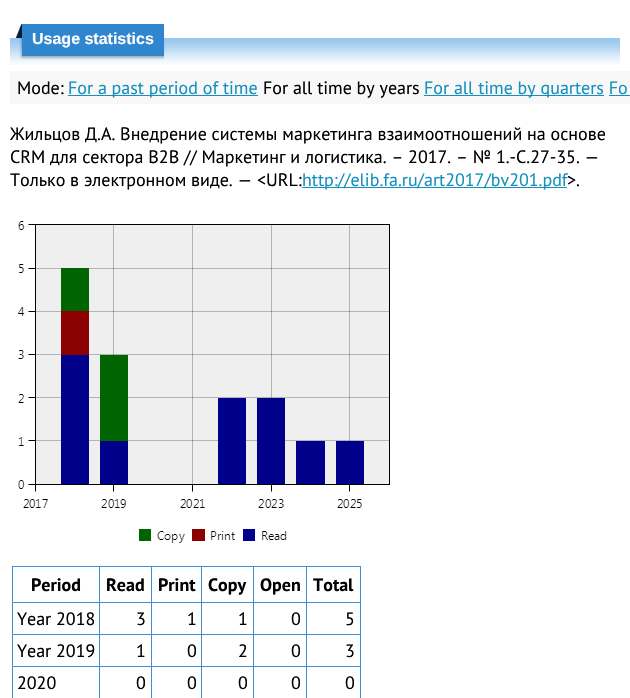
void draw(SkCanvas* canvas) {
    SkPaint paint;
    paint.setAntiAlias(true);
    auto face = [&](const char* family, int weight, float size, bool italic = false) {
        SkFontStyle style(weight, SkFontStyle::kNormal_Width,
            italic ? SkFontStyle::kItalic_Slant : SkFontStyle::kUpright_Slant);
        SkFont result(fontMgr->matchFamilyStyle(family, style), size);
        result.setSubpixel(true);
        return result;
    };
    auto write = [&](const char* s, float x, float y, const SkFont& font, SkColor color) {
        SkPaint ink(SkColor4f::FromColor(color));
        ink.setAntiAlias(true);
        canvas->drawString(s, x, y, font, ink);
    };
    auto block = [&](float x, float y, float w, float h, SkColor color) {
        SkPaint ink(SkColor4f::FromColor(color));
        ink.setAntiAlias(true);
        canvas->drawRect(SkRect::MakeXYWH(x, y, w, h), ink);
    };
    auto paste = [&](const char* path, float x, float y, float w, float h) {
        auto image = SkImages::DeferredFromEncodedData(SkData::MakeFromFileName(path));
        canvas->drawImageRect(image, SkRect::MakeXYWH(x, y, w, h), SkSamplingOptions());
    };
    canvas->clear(SK_ColorWHITE);
    paste("pic1.png", 10, 24, 12, 41);
    paste("pic2.png", 22, 24, 142, 41);
    auto kFont1 = face("Liberation Sans", 700, 16);
    write("Usage statistics", 32, 44, kFont1, SK_ColorWHITE);
    paste("pic3.png", 164, 26, 2, 39);
    paste("pic4.png", 166, 38, 454, 27);
    block(10, 71, 620, 33, SkColorSetRGB(248, 248, 248));
    auto kFont2 = face("PT Sans", 400, 18);
    write("Mode:", 17, 94, kFont2, SK_ColorBLACK);
    block(68, 95, 190, 1, SkColorSetRGB(19, 144, 190));
    write("For a past period of time", 68, 94, kFont2, SkColorSetRGB(19, 144, 190));
    write("For all time by years", 263, 94, kFont2, SK_ColorBLACK);
    block(424, 95, 180, 1, SkColorSetRGB(19, 144, 190));
    write("For all time by quarters Fo", 424, 94, kFont2, SkColorSetRGB(19, 144, 190));
    block(609, 95, 21, 1, SkColorSetRGB(19, 144, 190));
    write("Жильцов Д.А. Внедрение системы маркетинга взаимоотношений на основе", 10, 140, kFont2, SK_ColorBLACK);
    write("CRM для сектора В2В // Маркетинг и логистика. – 2017. – № 1.-С.27-35. —", 10, 163, kFont2, SK_ColorBLACK);
    write("Только в электронном виде. — <URL:", 10, 186, kFont2, SK_ColorBLACK);
    block(302, 187, 265, 1, SkColorSetRGB(19, 144, 190));
    write("http://elib.fa.ru/art2017/bv201.pdf", 302, 186, kFont2, SkColorSetRGB(19, 144, 190));
    write(">.", 567, 186, kFont2, SK_ColorBLACK);
    paste("pic5.png", 17, 221, 373, 322);
    block(12, 566, 349, 1, SkColorSetRGB(62, 142, 209));
    block(360, 566, 1, 132, SkColorSetRGB(62, 142, 209));
    block(12, 566, 1, 132, SkColorSetRGB(62, 142, 209));
    auto kFont3 = face("PT Sans", 700, 18);
    write("Period", 31, 591, kFont3, SK_ColorBLACK);
    block(306, 602, 55, 1, SkColorSetRGB(62, 142, 209));
    block(306, 634, 55, 1, SkColorSetRGB(62, 142, 209));
    block(306, 666, 55, 1, SkColorSetRGB(62, 142, 209));
    block(306, 666, 1, 32, SkColorSetRGB(62, 142, 209));
    block(253, 666, 54, 1, SkColorSetRGB(62, 142, 209));
    block(306, 634, 1, 33, SkColorSetRGB(62, 142, 209));
    block(253, 634, 54, 1, SkColorSetRGB(62, 142, 209));
    block(306, 602, 1, 33, SkColorSetRGB(62, 142, 209));
    block(253, 602, 54, 1, SkColorSetRGB(62, 142, 209));
    block(253, 666, 1, 32, SkColorSetRGB(62, 142, 209));
    block(201, 666, 53, 1, SkColorSetRGB(62, 142, 209));
    block(253, 634, 1, 33, SkColorSetRGB(62, 142, 209));
    block(201, 634, 53, 1, SkColorSetRGB(62, 142, 209));
    block(253, 602, 1, 33, SkColorSetRGB(62, 142, 209));
    block(201, 602, 53, 1, SkColorSetRGB(62, 142, 209));
    block(201, 666, 1, 32, SkColorSetRGB(62, 142, 209));
    block(151, 666, 51, 1, SkColorSetRGB(62, 142, 209));
    block(201, 634, 1, 33, SkColorSetRGB(62, 142, 209));
    block(151, 634, 51, 1, SkColorSetRGB(62, 142, 209));
    block(201, 602, 1, 33, SkColorSetRGB(62, 142, 209));
    block(151, 602, 51, 1, SkColorSetRGB(62, 142, 209));
    block(151, 666, 1, 32, SkColorSetRGB(62, 142, 209));
    block(99, 666, 53, 1, SkColorSetRGB(62, 142, 209));
    block(151, 634, 1, 33, SkColorSetRGB(62, 142, 209));
    block(99, 634, 53, 1, SkColorSetRGB(62, 142, 209));
    block(151, 602, 1, 33, SkColorSetRGB(62, 142, 209));
    block(99, 602, 53, 1, SkColorSetRGB(62, 142, 209));
    block(99, 666, 1, 32, SkColorSetRGB(62, 142, 209));
    block(12, 666, 88, 1, SkColorSetRGB(62, 142, 209));
    block(99, 634, 1, 33, SkColorSetRGB(62, 142, 209));
    block(12, 634, 88, 1, SkColorSetRGB(62, 142, 209));
    block(99, 602, 1, 33, SkColorSetRGB(62, 142, 209));
    block(12, 602, 88, 1, SkColorSetRGB(62, 142, 209));
    block(99, 566, 1, 37, SkColorSetRGB(62, 142, 209));
    write("Read", 106, 591, kFont3, SK_ColorBLACK);
    block(151, 566, 1, 37, SkColorSetRGB(62, 142, 209));
    write("Print", 158, 591, kFont3, SK_ColorBLACK);
    block(201, 566, 1, 37, SkColorSetRGB(62, 142, 209));
    write("Copy", 208, 591, kFont3, SK_ColorBLACK);
    block(253, 566, 1, 37, SkColorSetRGB(62, 142, 209));
    write("Open", 260, 591, kFont3, SK_ColorBLACK);
    block(306, 566, 1, 37, SkColorSetRGB(62, 142, 209));
    write("Total", 313, 591, kFont3, SK_ColorBLACK);
    write("Year 2018", 17, 625, kFont2, SK_ColorBLACK);
    write("3", 136, 625, kFont2, SK_ColorBLACK);
    write("1", 187, 625, kFont2, SK_ColorBLACK);
    write("1", 238, 625, kFont2, SK_ColorBLACK);
    write("0", 291, 625, kFont2, SK_ColorBLACK);
    write("5", 345, 625, kFont2, SK_ColorBLACK);
    write("Year 2019", 17, 657, kFont2, SK_ColorBLACK);
    write("1", 136, 657, kFont2, SK_ColorBLACK);
    write("0", 187, 657, kFont2, SK_ColorBLACK);
    write("2", 238, 657, kFont2, SK_ColorBLACK);
    write("0", 291, 657, kFont2, SK_ColorBLACK);
    write("3", 345, 657, kFont2, SK_ColorBLACK);
    write("2020", 17, 689, kFont2, SK_ColorBLACK);
    write("0", 136, 689, kFont2, SK_ColorBLACK);
    write("0", 187, 689, kFont2, SK_ColorBLACK);
    write("0", 238, 689, kFont2, SK_ColorBLACK);
    write("0", 291, 689, kFont2, SK_ColorBLACK);
    write("0", 345, 689, kFont2, SK_ColorBLACK);
}
